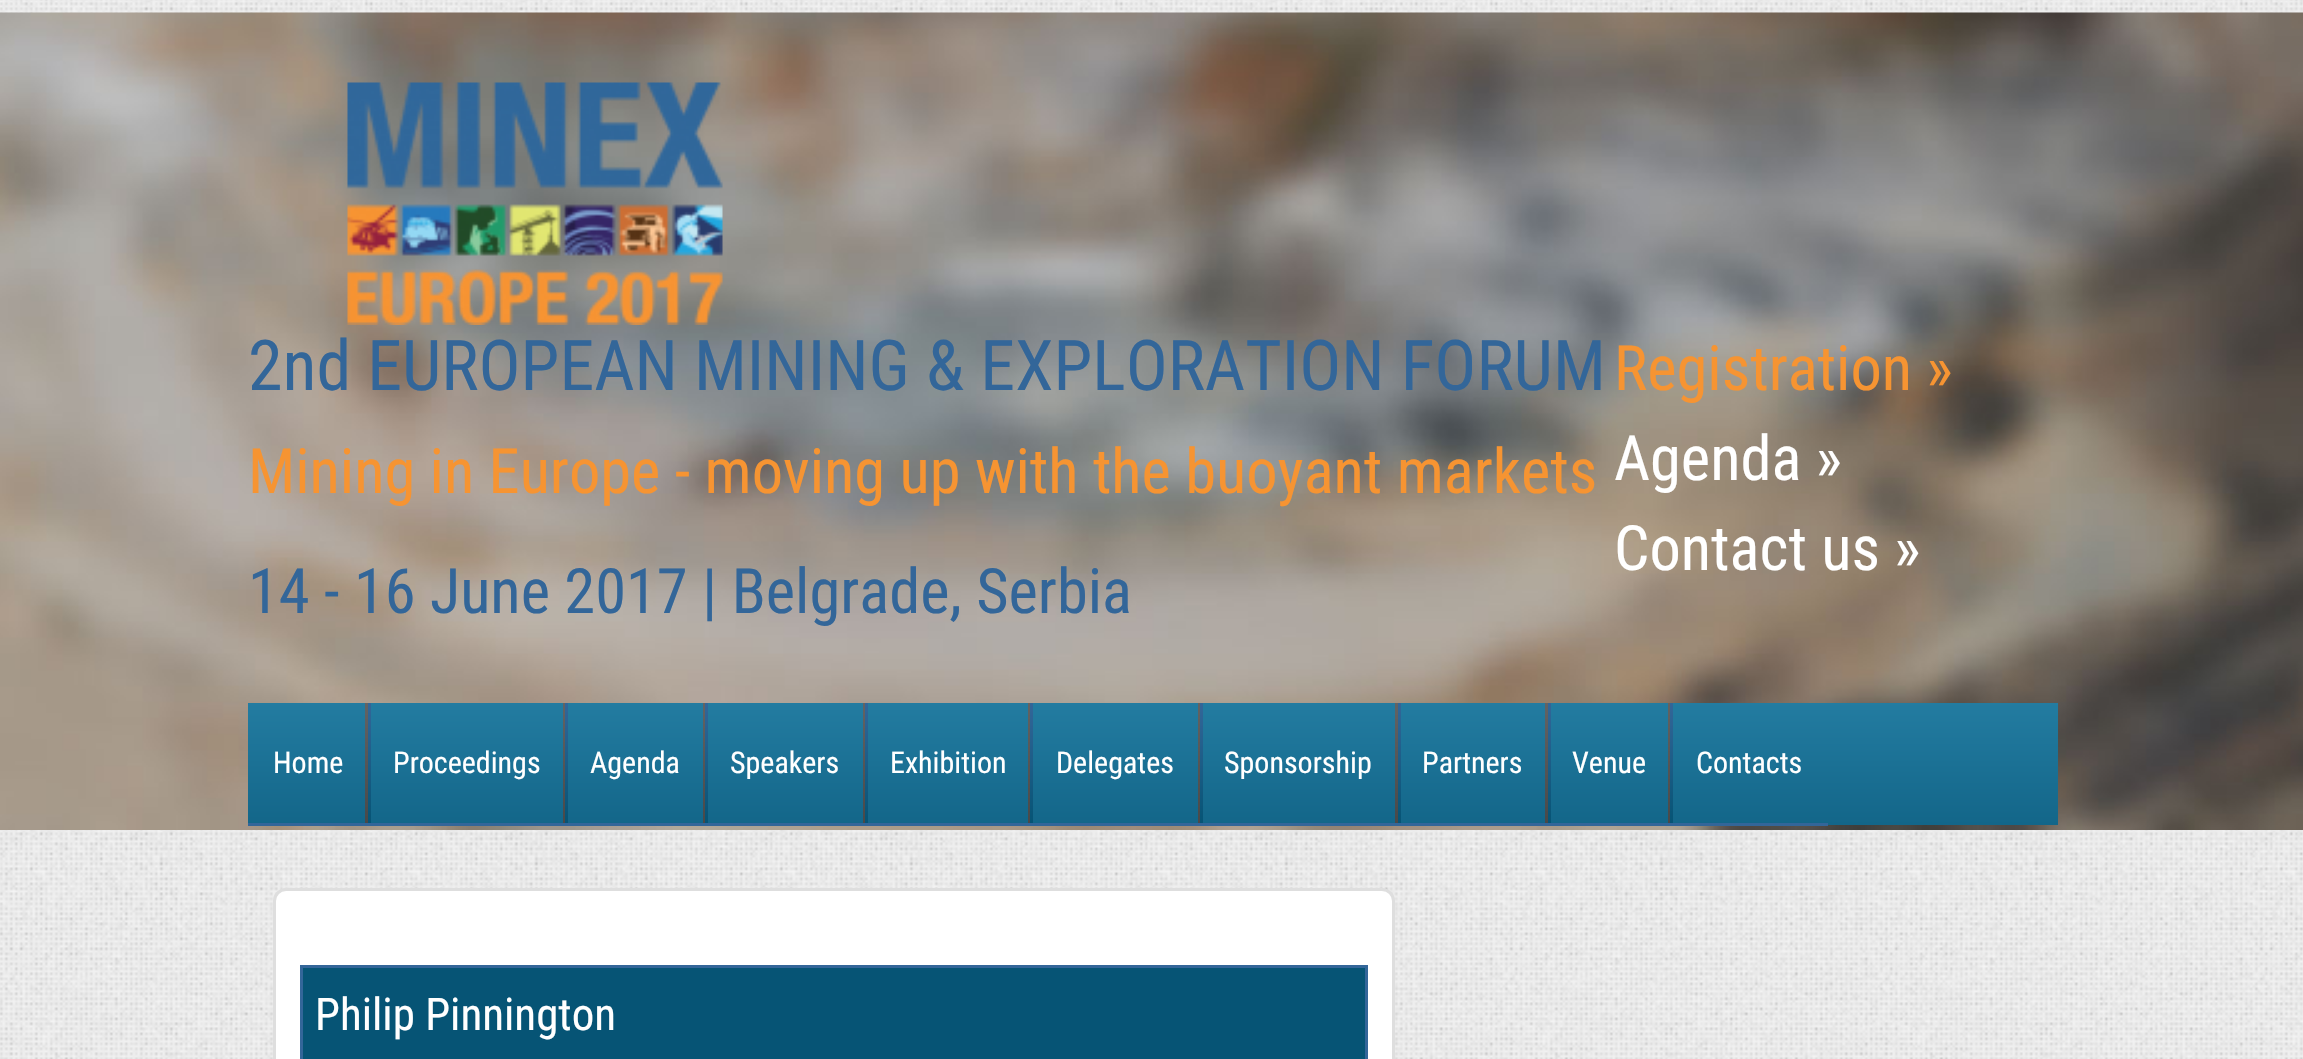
void draw(SkCanvas* canvas) {
    SkPaint paint;
    paint.setAntiAlias(true);
    auto face = [&](const char* family, int weight, float size, bool italic = false) {
        SkFontStyle style(weight, SkFontStyle::kNormal_Width,
            italic ? SkFontStyle::kItalic_Slant : SkFontStyle::kUpright_Slant);
        SkFont result(fontMgr->matchFamilyStyle(family, style), size);
        result.setSubpixel(true);
        return result;
    };
    auto write = [&](const char* s, float x, float y, const SkFont& font, SkColor color) {
        SkPaint ink(SkColor4f::FromColor(color));
        ink.setAntiAlias(true);
        canvas->drawString(s, x, y, font, ink);
    };
    auto block = [&](float x, float y, float w, float h, SkColor color) {
        SkPaint ink(SkColor4f::FromColor(color));
        ink.setAntiAlias(true);
        canvas->drawRect(SkRect::MakeXYWH(x, y, w, h), ink);
    };
    auto paste = [&](const char* path, float x, float y, float w, float h) {
        auto image = SkImages::DeferredFromEncodedData(SkData::MakeFromFileName(path));
        canvas->drawImageRect(image, SkRect::MakeXYWH(x, y, w, h), SkSamplingOptions());
    };
    canvas->clear(SK_ColorWHITE);
    paste("pic1.png", 0, 0, 2303, 1059);
    paste("pic2.png", 0, 12, 2303, 818);
    paste("pic3.png", 347, 82, 376, 243);
    auto kFont1 = face("Roboto Condensed", 400, 70);
    write("2nd EUROPEAN MINING & EXPLORATION FORUM", 248, 390, kFont1, SkColorSetRGB(51, 102, 153));
    auto kFont2 = face("Roboto Condensed", 400, 62.5f);
    write("Mining in Europe - moving up with the buoyant markets", 248, 493, kFont2, SkColorSetRGB(246, 148, 50));
    write("14 - 16 June 2017 | Belgrade, Serbia", 248, 613, kFont2, SkColorSetRGB(51, 102, 153));
    write("Registration »", 1614, 390, kFont2, SkColorSetRGB(246, 148, 50));
    write("Agenda »", 1614, 480, kFont2, SK_ColorWHITE);
    write("Contact us »", 1614, 570, kFont2, SK_ColorWHITE);
    {
        const SkColor colors[] = {SkColorSetRGB(35, 124, 161), SkColorSetRGB(19, 102, 137)};
        const float stops[] = {0, 1};
        const SkPoint ends[] = {{1153, 702}, {1153, 825}};
        paint.setShader(SkGradientShader::MakeLinear(ends, colors, stops, 2, SkTileMode::kClamp));
        paint.setAlpha(255);
    }
    canvas->drawRect(SkRect::MakeXYWH(248, 703, 1810, 122), paint);
    block(248, 823, 1580, 3, SkColorSetRGB(51, 102, 153));
    auto kFont3 = face("Roboto Condensed", 400, 30);
    write("Home", 273, 773, kFont3, SK_ColorWHITE);
    {
        const SkColor colors[] = {SkColorSetRGB(99, 99, 99), SkColorSetRGB(73, 73, 73)};
        const float stops[] = {0, 1};
        const SkPoint ends[] = {{366, 703}, {366, 823}};
        paint.setShader(SkGradientShader::MakeLinear(ends, colors, stops, 2, SkTileMode::kClamp));
        paint.setAlpha(255);
    }
    canvas->drawRect(SkRect::MakeXYWH(365, 703, 3, 120), paint);
    {
        const SkColor colors[] = {SkColorSetRGB(51, 102, 153), SkColorSetRGB(6, 84, 117)};
        const float stops[] = {0, 1};
        const SkPoint ends[] = {{369, 703}, {369, 823}};
        paint.setShader(SkGradientShader::MakeLinear(ends, colors, stops, 2, SkTileMode::kClamp));
        paint.setAlpha(255);
    }
    canvas->drawRect(SkRect::MakeXYWH(368, 703, 3, 120), paint);
    write("Proceedings", 393, 773, kFont3, SK_ColorWHITE);
    {
        const SkColor colors[] = {SkColorSetRGB(99, 99, 99), SkColorSetRGB(73, 73, 73)};
        const float stops[] = {0, 1};
        const SkPoint ends[] = {{564, 703}, {564, 823}};
        paint.setShader(SkGradientShader::MakeLinear(ends, colors, stops, 2, SkTileMode::kClamp));
        paint.setAlpha(255);
    }
    canvas->drawRect(SkRect::MakeXYWH(563, 703, 2, 120), paint);
    {
        const SkColor colors[] = {SkColorSetRGB(51, 102, 153), SkColorSetRGB(6, 84, 117)};
        const float stops[] = {0, 1};
        const SkPoint ends[] = {{566, 703}, {566, 823}};
        paint.setShader(SkGradientShader::MakeLinear(ends, colors, stops, 2, SkTileMode::kClamp));
        paint.setAlpha(255);
    }
    canvas->drawRect(SkRect::MakeXYWH(565, 703, 3, 120), paint);
    write("Agenda", 590, 773, kFont3, SK_ColorWHITE);
    {
        const SkColor colors[] = {SkColorSetRGB(99, 99, 99), SkColorSetRGB(73, 73, 73)};
        const float stops[] = {0, 1};
        const SkPoint ends[] = {{704, 703}, {704, 823}};
        paint.setShader(SkGradientShader::MakeLinear(ends, colors, stops, 2, SkTileMode::kClamp));
        paint.setAlpha(255);
    }
    canvas->drawRect(SkRect::MakeXYWH(703, 703, 2, 120), paint);
    {
        const SkColor colors[] = {SkColorSetRGB(51, 102, 153), SkColorSetRGB(6, 84, 117)};
        const float stops[] = {0, 1};
        const SkPoint ends[] = {{706, 703}, {706, 823}};
        paint.setShader(SkGradientShader::MakeLinear(ends, colors, stops, 2, SkTileMode::kClamp));
        paint.setAlpha(255);
    }
    canvas->drawRect(SkRect::MakeXYWH(705, 703, 3, 120), paint);
    write("Speakers", 730, 773, kFont3, SK_ColorWHITE);
    {
        const SkColor colors[] = {SkColorSetRGB(99, 99, 99), SkColorSetRGB(73, 73, 73)};
        const float stops[] = {0, 1};
        const SkPoint ends[] = {{864, 703}, {864, 823}};
        paint.setShader(SkGradientShader::MakeLinear(ends, colors, stops, 2, SkTileMode::kClamp));
        paint.setAlpha(255);
    }
    canvas->drawRect(SkRect::MakeXYWH(863, 703, 2, 120), paint);
    {
        const SkColor colors[] = {SkColorSetRGB(51, 102, 153), SkColorSetRGB(6, 84, 117)};
        const float stops[] = {0, 1};
        const SkPoint ends[] = {{866, 703}, {866, 823}};
        paint.setShader(SkGradientShader::MakeLinear(ends, colors, stops, 2, SkTileMode::kClamp));
        paint.setAlpha(255);
    }
    canvas->drawRect(SkRect::MakeXYWH(865, 703, 3, 120), paint);
    write("Exhibition", 890, 773, kFont3, SK_ColorWHITE);
    {
        const SkColor colors[] = {SkColorSetRGB(99, 99, 99), SkColorSetRGB(73, 73, 73)};
        const float stops[] = {0, 1};
        const SkPoint ends[] = {{1029, 703}, {1029, 823}};
        paint.setShader(SkGradientShader::MakeLinear(ends, colors, stops, 2, SkTileMode::kClamp));
        paint.setAlpha(255);
    }
    canvas->drawRect(SkRect::MakeXYWH(1028, 703, 2, 120), paint);
    {
        const SkColor colors[] = {SkColorSetRGB(51, 102, 153), SkColorSetRGB(6, 84, 117)};
        const float stops[] = {0, 1};
        const SkPoint ends[] = {{1031, 703}, {1031, 823}};
        paint.setShader(SkGradientShader::MakeLinear(ends, colors, stops, 2, SkTileMode::kClamp));
        paint.setAlpha(255);
    }
    canvas->drawRect(SkRect::MakeXYWH(1030, 703, 3, 120), paint);
    write("Delegates", 1056, 773, kFont3, SK_ColorWHITE);
    {
        const SkColor colors[] = {SkColorSetRGB(99, 99, 99), SkColorSetRGB(73, 73, 73)};
        const float stops[] = {0, 1};
        const SkPoint ends[] = {{1199, 703}, {1199, 823}};
        paint.setShader(SkGradientShader::MakeLinear(ends, colors, stops, 2, SkTileMode::kClamp));
        paint.setAlpha(255);
    }
    canvas->drawRect(SkRect::MakeXYWH(1198, 703, 2, 120), paint);
    {
        const SkColor colors[] = {SkColorSetRGB(51, 102, 153), SkColorSetRGB(6, 84, 117)};
        const float stops[] = {0, 1};
        const SkPoint ends[] = {{1201, 703}, {1201, 823}};
        paint.setShader(SkGradientShader::MakeLinear(ends, colors, stops, 2, SkTileMode::kClamp));
        paint.setAlpha(255);
    }
    canvas->drawRect(SkRect::MakeXYWH(1200, 703, 3, 120), paint);
    write("Sponsorship", 1224, 773, kFont3, SK_ColorWHITE);
    {
        const SkColor colors[] = {SkColorSetRGB(99, 99, 99), SkColorSetRGB(73, 73, 73)};
        const float stops[] = {0, 1};
        const SkPoint ends[] = {{1396, 703}, {1396, 823}};
        paint.setShader(SkGradientShader::MakeLinear(ends, colors, stops, 2, SkTileMode::kClamp));
        paint.setAlpha(255);
    }
    canvas->drawRect(SkRect::MakeXYWH(1395, 703, 3, 120), paint);
    {
        const SkColor colors[] = {SkColorSetRGB(51, 102, 153), SkColorSetRGB(6, 84, 117)};
        const float stops[] = {0, 1};
        const SkPoint ends[] = {{1399, 703}, {1399, 823}};
        paint.setShader(SkGradientShader::MakeLinear(ends, colors, stops, 2, SkTileMode::kClamp));
        paint.setAlpha(255);
    }
    canvas->drawRect(SkRect::MakeXYWH(1398, 703, 3, 120), paint);
    write("Partners", 1422, 773, kFont3, SK_ColorWHITE);
    {
        const SkColor colors[] = {SkColorSetRGB(99, 99, 99), SkColorSetRGB(73, 73, 73)};
        const float stops[] = {0, 1};
        const SkPoint ends[] = {{1546, 703}, {1546, 823}};
        paint.setShader(SkGradientShader::MakeLinear(ends, colors, stops, 2, SkTileMode::kClamp));
        paint.setAlpha(255);
    }
    canvas->drawRect(SkRect::MakeXYWH(1545, 703, 3, 120), paint);
    {
        const SkColor colors[] = {SkColorSetRGB(51, 102, 153), SkColorSetRGB(6, 84, 117)};
        const float stops[] = {0, 1};
        const SkPoint ends[] = {{1549, 703}, {1549, 823}};
        paint.setShader(SkGradientShader::MakeLinear(ends, colors, stops, 2, SkTileMode::kClamp));
        paint.setAlpha(255);
    }
    canvas->drawRect(SkRect::MakeXYWH(1548, 703, 3, 120), paint);
    write("Venue", 1572, 773, kFont3, SK_ColorWHITE);
    {
        const SkColor colors[] = {SkColorSetRGB(99, 99, 99), SkColorSetRGB(73, 73, 73)};
        const float stops[] = {0, 1};
        const SkPoint ends[] = {{1669, 703}, {1669, 823}};
        paint.setShader(SkGradientShader::MakeLinear(ends, colors, stops, 2, SkTileMode::kClamp));
        paint.setAlpha(255);
    }
    canvas->drawRect(SkRect::MakeXYWH(1668, 703, 2, 120), paint);
    {
        const SkColor colors[] = {SkColorSetRGB(51, 102, 153), SkColorSetRGB(6, 84, 117)};
        const float stops[] = {0, 1};
        const SkPoint ends[] = {{1671, 703}, {1671, 823}};
        paint.setShader(SkGradientShader::MakeLinear(ends, colors, stops, 2, SkTileMode::kClamp));
        paint.setAlpha(255);
    }
    canvas->drawRect(SkRect::MakeXYWH(1670, 703, 3, 120), paint);
    write("Contacts", 1696, 773, kFont3, SK_ColorWHITE);
    paint.setShader(nullptr);
    paint.setColor(SK_ColorWHITE);
    canvas->drawRoundRect(SkRect::MakeXYWH(274.5f, 889.5f, 1119, 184), 11.5f, 11.5f, paint);
    paint.setStyle(SkPaint::kStroke_Style);
    paint.setStrokeWidth(3);
    paint.setColor(SkColorSetRGB(222, 222, 222));
    canvas->drawRoundRect(SkRect::MakeXYWH(274.5f, 889.5f, 1119, 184), 11.5f, 11.5f, paint);
    paint.setStyle(SkPaint::kFill_Style);
    paint.setColor(SkColorSetRGB(6, 84, 117));
    canvas->drawRect(SkRect::MakeXYWH(301.5f, 966.5f, 1065, 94), paint);
    paint.setStyle(SkPaint::kStroke_Style);
    paint.setColor(SkColorSetRGB(51, 102, 153));
    canvas->drawRect(SkRect::MakeXYWH(301.5f, 966.5f, 1065, 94), paint);
    auto kFont4 = face("Roboto Condensed", 400, 45);
    write("Philip Pinnington", 315, 1030, kFont4, SK_ColorWHITE);
}
